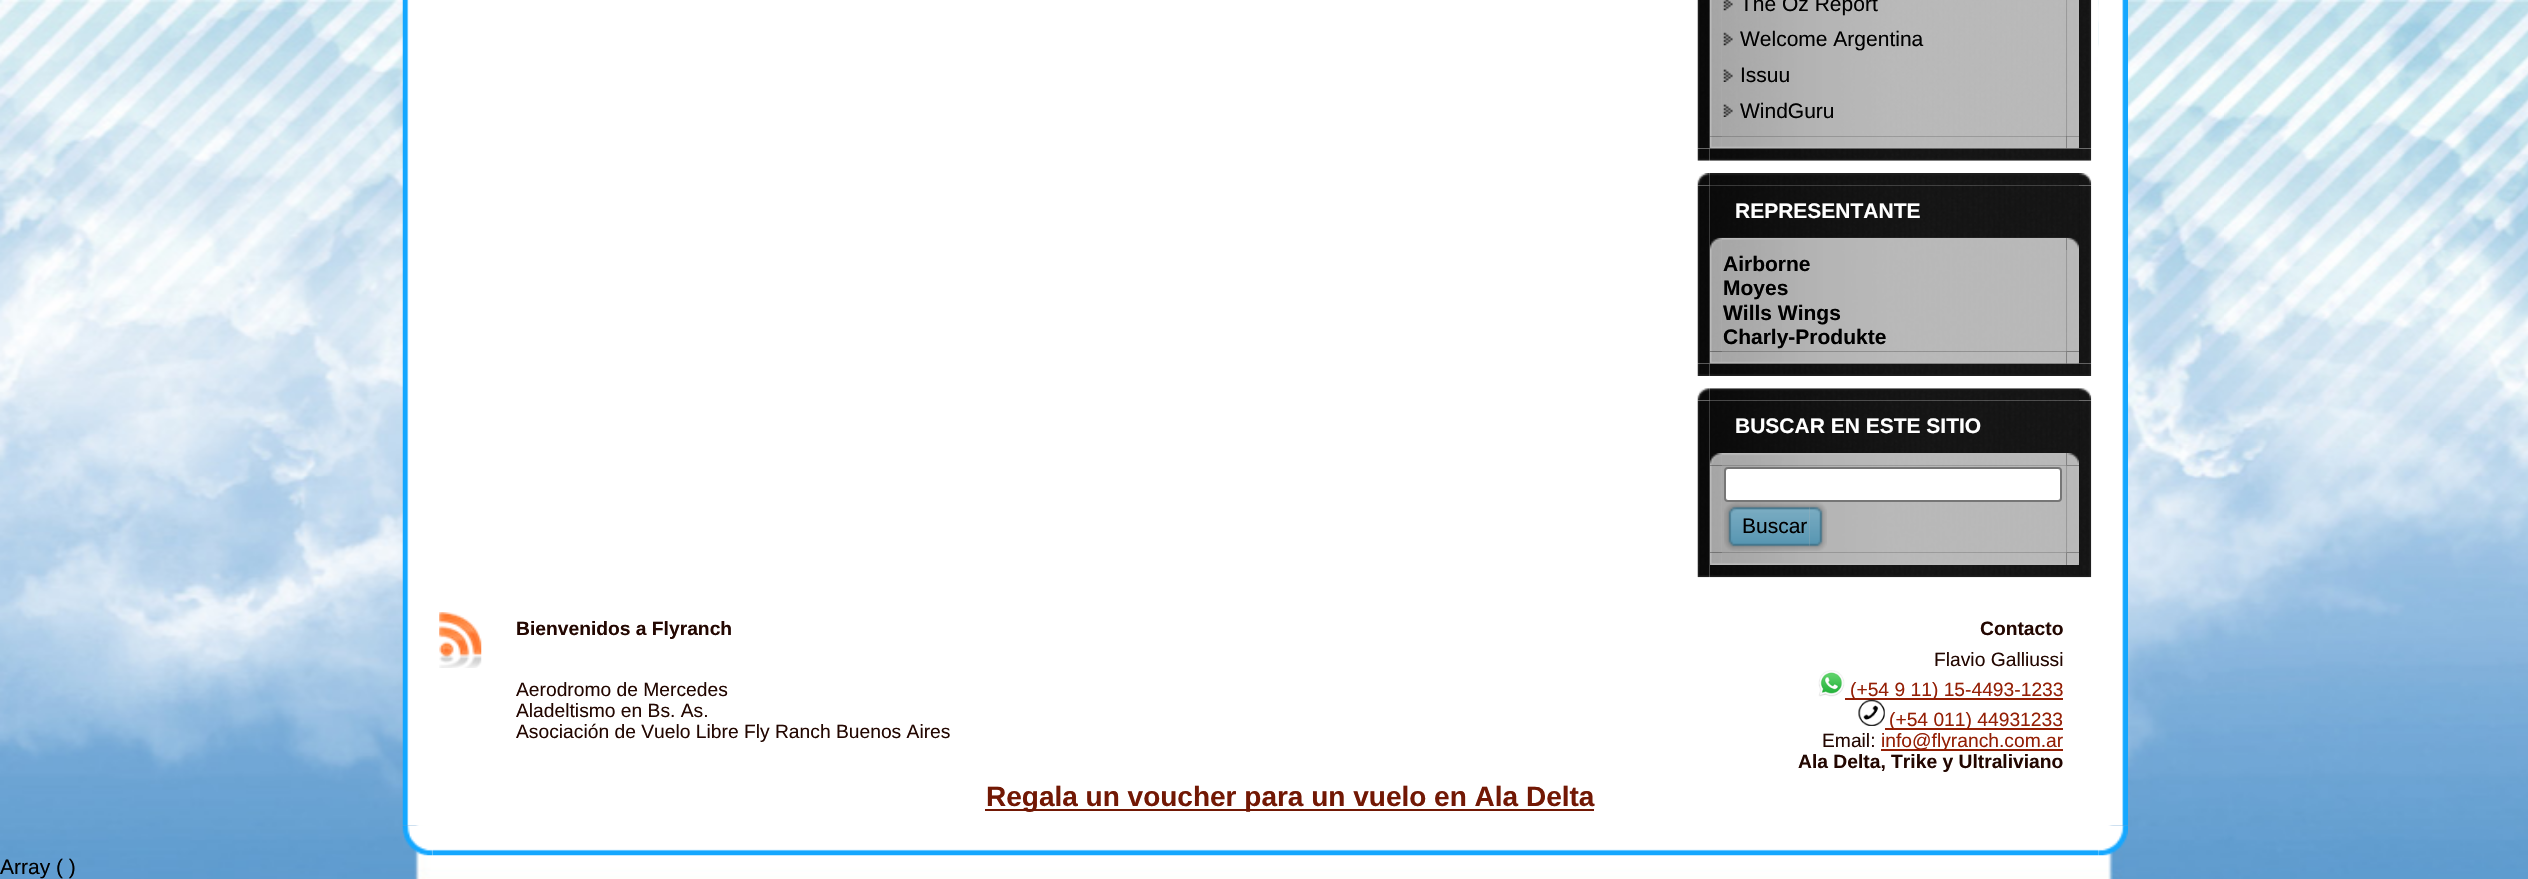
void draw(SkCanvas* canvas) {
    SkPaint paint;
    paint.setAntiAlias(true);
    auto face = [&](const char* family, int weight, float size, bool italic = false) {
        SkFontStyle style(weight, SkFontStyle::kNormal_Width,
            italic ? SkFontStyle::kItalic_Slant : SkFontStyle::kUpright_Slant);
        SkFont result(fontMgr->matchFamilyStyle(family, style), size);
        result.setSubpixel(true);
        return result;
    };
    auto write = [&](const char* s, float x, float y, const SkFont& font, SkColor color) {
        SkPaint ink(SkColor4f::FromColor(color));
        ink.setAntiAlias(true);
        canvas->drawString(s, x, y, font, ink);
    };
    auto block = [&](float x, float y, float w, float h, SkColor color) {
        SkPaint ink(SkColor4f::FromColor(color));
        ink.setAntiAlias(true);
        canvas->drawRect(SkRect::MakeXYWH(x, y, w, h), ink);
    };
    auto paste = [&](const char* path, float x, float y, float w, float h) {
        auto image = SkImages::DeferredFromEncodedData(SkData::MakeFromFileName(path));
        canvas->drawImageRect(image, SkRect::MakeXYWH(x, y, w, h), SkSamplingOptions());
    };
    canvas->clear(SK_ColorWHITE);
    paste("pic1.png", 0, 0, 2528, 879);
    paste("pic61.png", 402, 825, 31, 31);
    paste("pic2.png", 402, 0, 30, 826);
    block(432, 0, 1666, 57, SK_ColorWHITE);
    paste("pic16.png", 1697, 148, 13, 13);
    paste("pic17.png", 1709, 148, 370, 13);
    paste("pic3.png", 1697, 0, 13, 149);
    paste("pic4.png", 1709, 0, 370, 149);
    paste("pic5.png", 1709, 0, 13, 136);
    paste("pic11.png", 2066, 0, 13, 136);
    paste("pic14.png", 2066, 136, 13, 13);
    paste("pic13.png", 1722, 136, 345, 13);
    paste("pic6.png", 1722, 0, 345, 137);
    paste("pic7.png", 1723, 0, 10, 11);
    auto kFont1 = face("Liberation Sans", 400, 21);
    write("The Oz Report", 1740, 11, kFont1, SK_ColorBLACK);
    paste("pic8.png", 1723, 32, 10, 14);
    write("Welcome Argentina", 1740, 46, kFont1, SK_ColorBLACK);
    paste("pic9.png", 1723, 69, 10, 13);
    write("Issuu", 1740, 82, kFont1, SK_ColorBLACK);
    paste("pic10.png", 1723, 104, 10, 13);
    write("WindGuru", 1740, 118, kFont1, SK_ColorBLACK);
    paste("pic12.png", 1709, 136, 13, 13);
    paste("pic18.png", 2079, 148, 13, 13);
    paste("pic15.png", 2079, 0, 13, 149);
    paste("pic19.png", 1697, 173, 13, 13);
    paste("pic20.png", 1709, 173, 370, 13);
    paste("pic21.png", 2079, 173, 13, 13);
    paste("pic34.png", 1697, 363, 13, 13);
    paste("pic35.png", 1709, 363, 370, 13);
    paste("pic22.png", 1697, 185, 13, 179);
    paste("pic23.png", 1709, 185, 370, 179);
    paste("pic36.png", 2079, 363, 13, 13);
    paste("pic24.png", 2079, 185, 13, 179);
    auto kFont2 = face("Liberation Sans", 700, 21);
    write("REPRESENTANTE", 1735, 218, kFont2, SK_ColorWHITE);
    paste("pic25.png", 1709, 237, 13, 13);
    paste("pic27.png", 2066, 237, 13, 13);
    paste("pic26.png", 1722, 237, 345, 13);
    paste("pic31.png", 1709, 351, 13, 13);
    paste("pic28.png", 1709, 250, 13, 102);
    paste("pic33.png", 2066, 351, 13, 13);
    paste("pic32.png", 1722, 351, 345, 13);
    paste("pic30.png", 2066, 250, 13, 102);
    paste("pic29.png", 1722, 250, 345, 102);
    write("Airborne", 1723, 271, kFont2, SK_ColorBLACK);
    write("Moyes", 1723, 295, kFont2, SK_ColorBLACK);
    write("Wills Wings", 1723, 320, kFont2, SK_ColorBLACK);
    write("Charly-Produkte", 1723, 344, kFont2, SK_ColorBLACK);
    paste("pic37.png", 1697, 388, 13, 13);
    paste("pic38.png", 1709, 388, 370, 13);
    paste("pic39.png", 2079, 388, 13, 13);
    paste("pic40.png", 1697, 400, 13, 165);
    paste("pic41.png", 1709, 400, 370, 165);
    paste("pic42.png", 2079, 400, 13, 165);
    write("BUSCAR EN ESTE SITIO", 1735, 433, kFont2, SK_ColorWHITE);
    paste("pic43.png", 1709, 453, 13, 13);
    paste("pic45.png", 2066, 453, 13, 13);
    paste("pic44.png", 1722, 453, 345, 13);
    paste("pic51.png", 1709, 552, 13, 13);
    paste("pic46.png", 1709, 465, 13, 88);
    paste("pic53.png", 2066, 552, 13, 13);
    paste("pic52.png", 1722, 552, 345, 13);
    paste("pic48.png", 2066, 465, 13, 88);
    paste("pic47.png", 1722, 465, 345, 88);
    paint.setColor(SK_ColorWHITE);
    canvas->drawRoundRect(SkRect::MakeXYWH(1725, 468, 336, 33), 3, 3, paint);
    paint.setStyle(SkPaint::kStroke_Style);
    paint.setStrokeWidth(2);
    paint.setColor(SkColorSetRGB(118, 118, 118));
    canvas->drawRoundRect(SkRect::MakeXYWH(1725, 468, 336, 33), 3, 3, paint);
    paste("pic49.png", 1724, 502, 86, 49);
    paste("pic50.png", 1809, 502, 18, 49);
    write("Buscar", 1742, 533, kFont1, SK_ColorBLACK);
    paste("pic54.png", 1697, 565, 13, 13);
    paste("pic55.png", 1709, 565, 370, 13);
    paste("pic56.png", 2079, 565, 13, 13);
    paste("pic57.png", 439, 612, 43, 56);
    auto kFont3 = face("Liberation Sans", 700, 19.25f);
    write("Bienvenidos a Flyranch", 516, 635, kFont3, SkColorSetRGB(35, 7, 1));
    write("Contacto", 1980, 635, kFont3, SkColorSetRGB(35, 7, 1));
    auto kFont4 = face("Liberation Sans", 400, 19.25f);
    write("Aerodromo de Mercedes", 516, 696, kFont4, SkColorSetRGB(35, 7, 1));
    write("Aladeltismo en Bs. As.", 516, 717, kFont4, SkColorSetRGB(35, 7, 1));
    write("Asociación de Vuelo Libre Fly Ranch Buenos Aires", 516, 738, kFont4, SkColorSetRGB(35, 7, 1));
    write("Flavio Galliussi", 1934, 666, kFont4, SkColorSetRGB(35, 7, 1));
    paste("pic58.png", 1818, 670, 27, 27);
    block(1845, 698, 218, 2, SkColorSetRGB(148, 31, 5));
    write("(+54 9 11) 15-4493-1233", 1850, 696, kFont4, SkColorSetRGB(148, 31, 5));
    paste("pic59.png", 1858, 699, 27, 27);
    block(1885, 728, 178, 2, SkColorSetRGB(148, 31, 5));
    write("(+54 011) 44931233", 1889, 726, kFont4, SkColorSetRGB(148, 31, 5));
    write("Email:", 1822, 747, kFont4, SkColorSetRGB(35, 7, 1));
    block(1881, 749, 182, 2, SkColorSetRGB(148, 31, 5));
    write("info@flyranch.com.ar", 1881, 747, kFont4, SkColorSetRGB(148, 31, 5));
    write("Ala Delta, Trike y Ultraliviano", 1798, 768, kFont3, SkColorSetRGB(35, 7, 1));
    block(985, 809, 609, 2, SkColorSetRGB(114, 24, 4));
    auto kFont5 = face("Liberation Sans", 700, 28);
    write("Regala un voucher para un vuelo en Ala Delta", 986, 806, kFont5, SkColorSetRGB(114, 24, 4));
    paste("pic63.png", 2098, 825, 30, 31);
    paste("pic60.png", 2098, 0, 30, 826);
    paste("pic62.png", 432, 849, 1667, 7);
    write("Array ( )", 0, 874, kFont1, SK_ColorBLACK);
}
